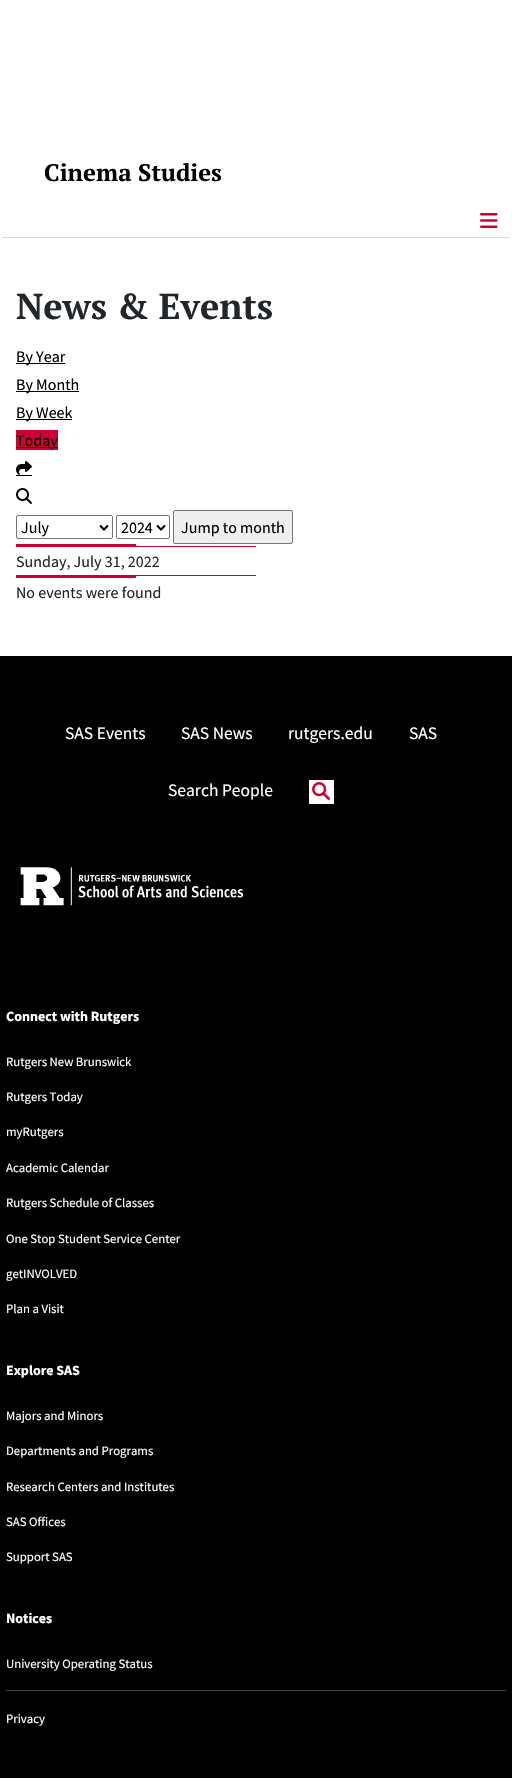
void draw(SkCanvas* canvas) {
    SkPaint paint;
    paint.setAntiAlias(true);
    auto face = [&](const char* family, int weight, float size, bool italic = false) {
        SkFontStyle style(weight, SkFontStyle::kNormal_Width,
            italic ? SkFontStyle::kItalic_Slant : SkFontStyle::kUpright_Slant);
        SkFont result(fontMgr->matchFamilyStyle(family, style), size);
        result.setSubpixel(true);
        return result;
    };
    auto write = [&](const char* s, float x, float y, const SkFont& font, SkColor color) {
        SkPaint ink(SkColor4f::FromColor(color));
        ink.setAntiAlias(true);
        canvas->drawString(s, x, y, font, ink);
    };
    auto block = [&](float x, float y, float w, float h, SkColor color) {
        SkPaint ink(SkColor4f::FromColor(color));
        ink.setAntiAlias(true);
        canvas->drawRect(SkRect::MakeXYWH(x, y, w, h), ink);
    };
    auto paste = [&](const char* path, float x, float y, float w, float h) {
        auto image = SkImages::DeferredFromEncodedData(SkData::MakeFromFileName(path));
        canvas->drawImageRect(image, SkRect::MakeXYWH(x, y, w, h), SkSamplingOptions());
    };
    canvas->clear(SK_ColorWHITE);
    auto kFont1 = face("PT Serif", 700, 24);
    write("Cinema Studies", 44, 181, kFont1, SK_ColorBLACK);
    block(2, 237, 508, 1, SkColorSetRGB(221, 221, 221));
    paste("pic1.png", 480, 213, 18, 15);
    auto kFont2 = face("PT Serif", 700, 36);
    write("News & Events", 16, 319, kFont2, SkColorSetRGB(34, 38, 42));
    block(16, 363, 49, 1, SK_ColorBLACK);
    auto kFont3 = face("Source Sans Pro", 400, 16);
    write("By Year", 16, 362, kFont3, SK_ColorBLACK);
    block(16, 391, 63, 1, SK_ColorBLACK);
    write("By Month", 16, 390, kFont3, SK_ColorBLACK);
    block(16, 419, 56, 1, SK_ColorBLACK);
    write("By Week", 16, 418, kFont3, SK_ColorBLACK);
    block(16, 430, 42, 20, SkColorSetRGB(204, 0, 51));
    block(16, 447, 42, 1, SK_ColorBLACK);
    write("Today", 16, 446, kFont3, SK_ColorBLACK);
    paste("pic2.png", 16, 461, 16, 14);
    block(16, 475, 16, 1, SK_ColorBLACK);
    paste("pic3.png", 16, 488, 16, 16);
    paint.setStyle(SkPaint::kStroke_Style);
    paint.setStrokeWidth(1);
    paint.setColor(SkColorSetRGB(118, 118, 118));
    canvas->drawRoundRect(SkRect::MakeXYWH(16.5f, 515.5f, 96, 23), 1.5f, 1.5f, paint);
    paint.setStrokeWidth(2);
    paint.setColor(SK_ColorBLACK);
    canvas->drawPath(SkPathBuilder().moveTo(100, 525.5f).lineTo(104, 529.5f).lineTo(108, 525.5f).detach(), paint);
    write("July", 21, 533, kFont3, SK_ColorBLACK);
    paint.setStrokeWidth(1);
    paint.setColor(SkColorSetRGB(118, 118, 118));
    canvas->drawRoundRect(SkRect::MakeXYWH(116.5f, 515.5f, 53, 23), 1.5f, 1.5f, paint);
    paint.setStrokeWidth(2);
    paint.setColor(SK_ColorBLACK);
    canvas->drawPath(SkPathBuilder().moveTo(157, 525.5f).lineTo(161, 529.5f).lineTo(165, 525.5f).detach(), paint);
    write("2024", 121, 533, kFont3, SK_ColorBLACK);
    paint.setStyle(SkPaint::kFill_Style);
    paint.setColor(SkColorSetRGB(239, 239, 239));
    canvas->drawRoundRect(SkRect::MakeXYWH(173.5f, 510.5f, 119, 33), 1.5f, 1.5f, paint);
    paint.setStyle(SkPaint::kStroke_Style);
    paint.setStrokeWidth(1);
    paint.setColor(SkColorSetRGB(118, 118, 118));
    canvas->drawRoundRect(SkRect::MakeXYWH(173.5f, 510.5f, 119, 33), 1.5f, 1.5f, paint);
    write("Jump to month", 181, 533, kFont3, SK_ColorBLACK);
    block(16, 544, 120, 2, SkColorSetRGB(204, 0, 51));
    block(16, 546, 240, 1, SkColorSetRGB(204, 0, 51));
    block(16, 575, 240, 1, SkColorSetRGB(204, 0, 51));
    write("Sunday, July 31, 2022", 16, 567, kFont3, SkColorSetRGB(34, 38, 42));
    block(16, 576, 120, 2, SkColorSetRGB(204, 0, 51));
    write("No events were found", 16, 598, kFont3, SkColorSetRGB(34, 38, 42));
    block(0, 656, 512, 1122, SK_ColorBLACK);
    auto kFont4 = face("Source Sans Pro", 400, 17.5f);
    write("SAS Events", 65, 739, kFont4, SK_ColorWHITE);
    write("SAS News", 181, 739, kFont4, SK_ColorWHITE);
    write("rutgers.edu", 288, 739, kFont4, SK_ColorWHITE);
    write("SAS", 409, 739, kFont4, SK_ColorWHITE);
    write("Search People", 168, 796, kFont4, SK_ColorWHITE);
    paste("pic4.png", 309, 780, 25, 24);
    paste("pic5.png", 20, 867, 224, 39);
    auto kFont5 = face("Source Sans Pro", 700, 14);
    write("Connect with Rutgers", 6, 1021, kFont5, SK_ColorWHITE);
    auto kFont6 = face("Source Sans Pro", 400, 12.75f);
    write("Rutgers New Brunswick", 6, 1066, kFont6, SK_ColorWHITE);
    write("Rutgers Today", 6, 1101, kFont6, SK_ColorWHITE);
    write("myRutgers", 6, 1136, kFont6, SK_ColorWHITE);
    write("Academic Calendar", 6, 1172, kFont6, SK_ColorWHITE);
    write("Rutgers Schedule of Classes", 6, 1207, kFont6, SK_ColorWHITE);
    write("One Stop Student Service Center", 6, 1243, kFont6, SK_ColorWHITE);
    write("getINVOLVED", 6, 1278, kFont6, SK_ColorWHITE);
    write("Plan a Visit", 6, 1313, kFont6, SK_ColorWHITE);
    write("Explore SAS", 6, 1375, kFont5, SK_ColorWHITE);
    write("Majors and Minors", 6, 1420, kFont6, SK_ColorWHITE);
    write("Departments and Programs", 6, 1455, kFont6, SK_ColorWHITE);
    write("Research Centers and Institutes", 6, 1491, kFont6, SK_ColorWHITE);
    write("SAS Offices", 6, 1526, kFont6, SK_ColorWHITE);
    write("Support SAS", 6, 1561, kFont6, SK_ColorWHITE);
    write("Notices", 6, 1623, kFont5, SK_ColorWHITE);
    write("University Operating Status", 6, 1668, kFont6, SK_ColorWHITE);
    block(6, 1690, 500, 1, SkColorSetRGB(64, 64, 64));
    write("Privacy", 6, 1723, kFont6, SK_ColorWHITE);
}
